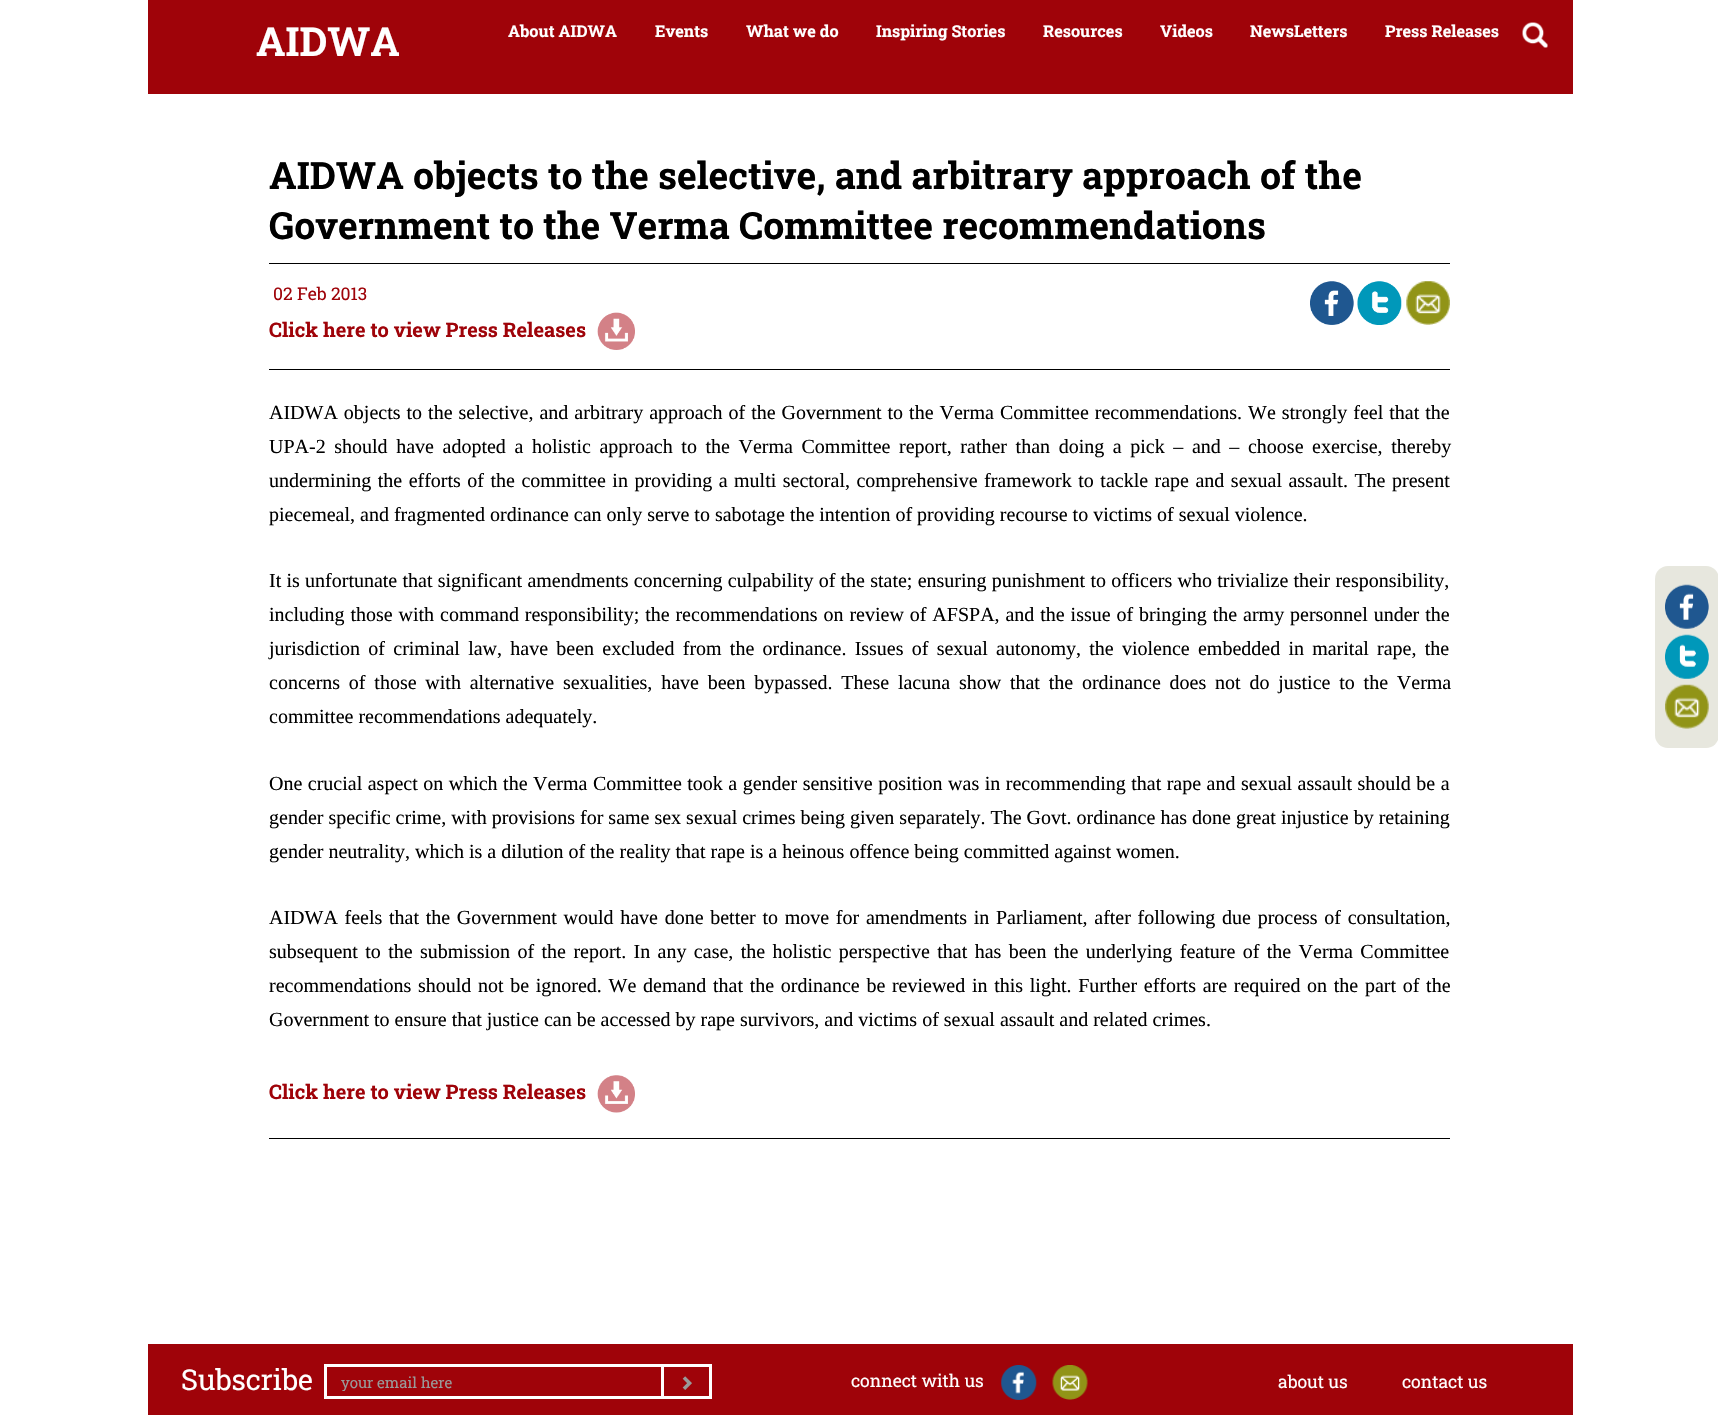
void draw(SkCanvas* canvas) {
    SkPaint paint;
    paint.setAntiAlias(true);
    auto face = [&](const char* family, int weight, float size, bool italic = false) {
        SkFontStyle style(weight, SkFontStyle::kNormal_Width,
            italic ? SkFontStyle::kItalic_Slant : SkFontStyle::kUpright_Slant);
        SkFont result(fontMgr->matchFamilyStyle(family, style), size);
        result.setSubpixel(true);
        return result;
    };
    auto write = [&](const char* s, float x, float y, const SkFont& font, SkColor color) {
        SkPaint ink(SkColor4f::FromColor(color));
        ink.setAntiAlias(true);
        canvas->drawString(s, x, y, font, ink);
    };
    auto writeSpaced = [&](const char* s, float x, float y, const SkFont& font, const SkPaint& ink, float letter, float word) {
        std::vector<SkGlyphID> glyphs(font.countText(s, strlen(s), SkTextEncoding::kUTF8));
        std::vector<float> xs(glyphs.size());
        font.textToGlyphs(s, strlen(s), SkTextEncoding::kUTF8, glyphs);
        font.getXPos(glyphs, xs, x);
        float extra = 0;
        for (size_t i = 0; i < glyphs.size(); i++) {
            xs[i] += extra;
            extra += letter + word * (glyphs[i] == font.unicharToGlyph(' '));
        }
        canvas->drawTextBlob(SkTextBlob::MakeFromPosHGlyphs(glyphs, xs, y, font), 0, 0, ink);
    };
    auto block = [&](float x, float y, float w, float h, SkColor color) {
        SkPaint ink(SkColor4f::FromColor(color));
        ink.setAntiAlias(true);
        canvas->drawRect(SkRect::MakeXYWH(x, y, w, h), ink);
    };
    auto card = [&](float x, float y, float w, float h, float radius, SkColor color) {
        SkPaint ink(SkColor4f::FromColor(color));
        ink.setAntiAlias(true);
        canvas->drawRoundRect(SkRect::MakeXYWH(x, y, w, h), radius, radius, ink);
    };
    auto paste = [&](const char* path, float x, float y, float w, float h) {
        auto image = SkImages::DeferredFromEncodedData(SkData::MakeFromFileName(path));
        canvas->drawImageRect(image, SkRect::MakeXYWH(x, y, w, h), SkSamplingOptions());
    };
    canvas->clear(SK_ColorWHITE);
    block(148, 0, 1425, 94, SkColorSetRGB(159, 3, 9));
    auto kFont1 = face("Roboto Slab", 700, 40);
    write("AIDWA", 256, 56, kFont1, SK_ColorWHITE);
    auto kFont2 = face("Roboto Slab", 700, 16.25f);
    write("About AIDWA", 508, 37, kFont2, SK_ColorWHITE);
    write("Events", 655, 37, kFont2, SK_ColorWHITE);
    write("What we do", 746, 37, kFont2, SK_ColorWHITE);
    write("Inspiring Stories", 876, 37, kFont2, SK_ColorWHITE);
    write("Resources", 1043, 37, kFont2, SK_ColorWHITE);
    write("Videos", 1160, 37, kFont2, SK_ColorWHITE);
    write("NewsLetters", 1250, 37, kFont2, SK_ColorWHITE);
    write("Press Releases", 1385, 37, kFont2, SK_ColorWHITE);
    paste("pic1.png", 1522, 22, 26, 26);
    block(269, 263, 1181, 1, SK_ColorBLACK);
    auto kFont3 = face("Roboto Slab", 700, 37.5f);
    write("AIDWA objects to the selective, and arbitrary approach of the", 269, 189, kFont3, SK_ColorBLACK);
    write("Government to the Verma Committee recommendations", 269, 239, kFont3, SK_ColorBLACK);
    block(269, 369, 1181, 1, SK_ColorBLACK);
    auto kFont4 = face("Roboto Slab", 400, 17.5f);
    write("02 Feb 2013", 273, 300, kFont4, SkColorSetRGB(159, 3, 9));
    auto kFont5 = face("Roboto Slab", 700, 20);
    write("Click here to view Press Releases", 269, 337, kFont5, SkColorSetRGB(159, 3, 9));
    paste("pic2.png", 597, 312, 38, 38);
    paste("pic3.png", 1310, 281, 44, 44);
    paste("pic4.png", 1357, 281, 45, 44);
    paste("pic5.png", 1406, 281, 44, 44);
    auto kFont6 = face("Liberation Serif", 400, 20);
    paint.setColor(SK_ColorBLACK);
    writeSpaced("AIDWA objects to the selective, and arbitrary approach of the Government to the Verma Committee recommendations. We strongly feel that the", 269, 419, kFont6, paint, 0, 1);
    writeSpaced("UPA-2 should have adopted a holistic approach to the Verma Committee report, rather than doing a pick – and – choose exercise, thereby", 269, 453, kFont6, paint, 0, 3.6f);
    writeSpaced("undermining the efforts of the committee in providing a multi sectoral, comprehensive framework to tackle rape and sexual assault. The present", 269, 487, kFont6, paint, 0, 1.5f);
    write("piecemeal, and fragmented ordinance can only serve to sabotage the intention of providing recourse to victims of sexual violence.", 269, 521, kFont6, SK_ColorBLACK);
    writeSpaced("It is unfortunate that significant amendments concerning culpability of the state; ensuring punishment to officers who trivialize their responsibility,", 269, 587, kFont6, paint, 0, 0.25f);
    writeSpaced("including those with command responsibility; the recommendations on review of AFSPA, and the issue of bringing the army personnel under the", 269, 621, kFont6, paint, 0, 0.9f);
    writeSpaced("jurisdiction of criminal law, have been excluded from the ordinance. Issues of sexual autonomy, the violence embedded in marital rape, the", 269, 655, kFont6, paint, 0, 3.25f);
    writeSpaced("concerns of those with alternative sexualities, have been bypassed. These lacuna show that the ordinance does not do justice to the Verma", 269, 689, kFont6, paint, 0, 3.8f);
    write("committee recommendations adequately.", 269, 723, kFont6, SK_ColorBLACK);
    writeSpaced("One crucial aspect on which the Verma Committee took a gender sensitive position was in recommending that rape and sexual assault should be a", 269, 790, kFont6, paint, 0, 0.5f);
    write("gender specific crime, with provisions for same sex sexual crimes being given separately. The Govt. ordinance has done great injustice by retaining", 269, 824, kFont6, SK_ColorBLACK);
    write("gender neutrality, which is a dilution of the reality that rape is a heinous offence being committed against women.", 269, 858, kFont6, SK_ColorBLACK);
    writeSpaced("AIDWA feels that the Government would have done better to move for amendments in Parliament, after following due process of consultation,", 269, 924, kFont6, paint, 0, 1.7f);
    writeSpaced("subsequent to the submission of the report. In any case, the holistic perspective that has been the underlying feature of the Verma Committee", 269, 958, kFont6, paint, 0, 2.4f);
    writeSpaced("recommendations should not be ignored. We demand that the ordinance be reviewed in this light. Further efforts are required on the part of the", 269, 992, kFont6, paint, 0, 1.7f);
    write("Government to ensure that justice can be accessed by rape survivors, and victims of sexual assault and related crimes.", 269, 1026, kFont6, SK_ColorBLACK);
    card(1655, 566, 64, 182, 13, SkColorSetRGB(231, 231, 222));
    paste("pic6.png", 1665, 584, 44, 45);
    paste("pic7.png", 1665, 634, 44, 45);
    paste("pic8.png", 1665, 684, 44, 45);
    write("Click here to view Press Releases", 269, 1099, kFont5, SkColorSetRGB(159, 3, 9));
    paste("pic9.png", 597, 1075, 38, 38);
    block(269, 1138, 1181, 1, SK_ColorBLACK);
    block(148, 1344, 1425, 71, SkColorSetRGB(159, 3, 9));
    auto kFont7 = face("Roboto Slab", 400, 28.75f);
    write("Subscribe", 181, 1390, kFont7, SK_ColorWHITE);
    paint.setStyle(SkPaint::kStroke_Style);
    paint.setStrokeWidth(3);
    paint.setColor(SK_ColorWHITE);
    canvas->drawRect(SkRect::MakeXYWH(325.5f, 1365.5f, 337, 32), paint);
    canvas->save();
    canvas->clipRect(SkRect::MakeXYWH(341, 1371, 305, 20));
    auto kFont8 = face("Roboto Slab", 400, 15);
    write("your email here", 341, 1388, kFont8, SkColorSetRGB(153, 153, 153));
    canvas->restore();
    block(664, 1364, 47, 3, SK_ColorWHITE);
    block(709, 1364, 3, 35, SK_ColorWHITE);
    block(664, 1396, 47, 3, SK_ColorWHITE);
    paste("pic10.png", 682, 1376, 10, 14);
    write("connect with us", 851, 1387, kFont4, SK_ColorWHITE);
    paste("pic11.png", 1001, 1365, 36, 35);
    paste("pic12.png", 1052, 1365, 36, 35);
    write("about us", 1278, 1388, kFont4, SK_ColorWHITE);
    write("contact us", 1402, 1388, kFont4, SK_ColorWHITE);
}
